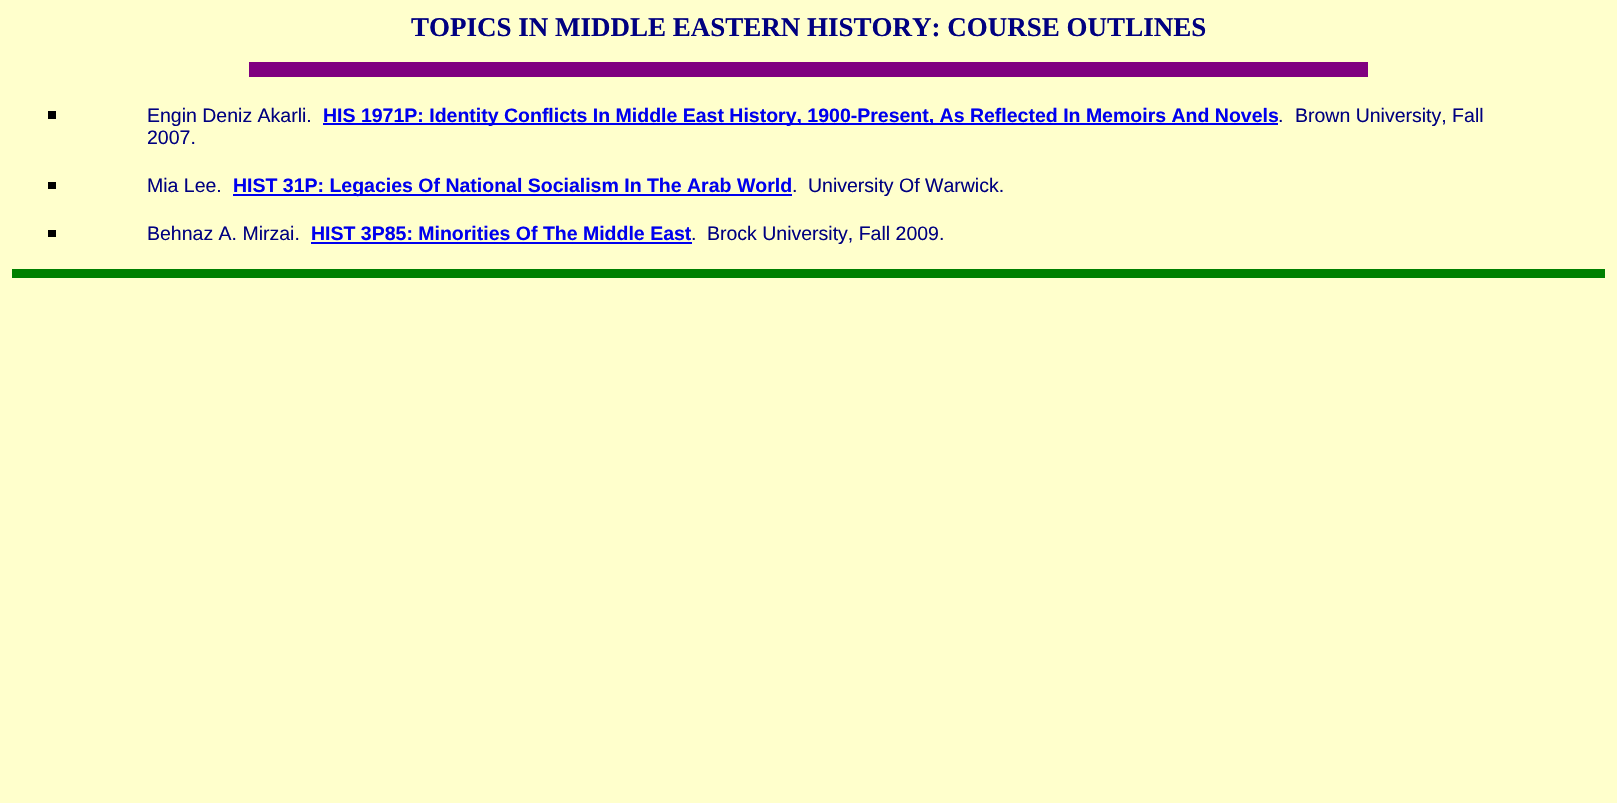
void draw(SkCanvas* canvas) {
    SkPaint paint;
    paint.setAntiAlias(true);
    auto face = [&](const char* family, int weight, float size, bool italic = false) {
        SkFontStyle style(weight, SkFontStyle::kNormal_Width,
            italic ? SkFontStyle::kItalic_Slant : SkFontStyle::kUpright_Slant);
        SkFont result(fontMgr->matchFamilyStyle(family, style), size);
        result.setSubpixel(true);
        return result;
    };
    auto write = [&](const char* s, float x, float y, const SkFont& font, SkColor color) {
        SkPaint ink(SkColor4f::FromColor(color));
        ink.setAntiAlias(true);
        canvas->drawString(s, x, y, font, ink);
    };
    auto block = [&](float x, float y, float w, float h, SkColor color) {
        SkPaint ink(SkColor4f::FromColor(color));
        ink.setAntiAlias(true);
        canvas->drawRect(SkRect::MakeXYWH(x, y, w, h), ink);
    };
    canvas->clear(SkColorSetRGB(255, 255, 204));
    auto kFont1 = face("Liberation Serif", 700, 27);
    write("TOPICS IN MIDDLE EASTERN HISTORY: COURSE OUTLINES", 411, 36, kFont1, SkColorSetRGB(0, 0, 128));
    block(249, 62, 1119, 15, SkColorSetRGB(128, 0, 128));
    block(48, 111, 8, 8, SK_ColorBLACK);
    auto kFont2 = face("Liberation Sans", 400, 19.5f);
    write("Engin Deniz Akarli.", 147, 122, kFont2, SkColorSetRGB(0, 0, 128));
    block(323, 123, 955, 2, SkColorSetRGB(0, 0, 238));
    auto kFont3 = face("Liberation Sans", 700, 19.5f);
    write("HIS 1971P: Identity Conflicts In Middle East History, 1900-Present, As Reflected In Memoirs And Novels", 323, 122, kFont3, SkColorSetRGB(0, 0, 238));
    write(".", 1278, 122, kFont2, SkColorSetRGB(0, 0, 128));
    write("Brown University, Fall", 1295, 122, kFont2, SkColorSetRGB(0, 0, 128));
    write("2007.", 147, 144, kFont2, SkColorSetRGB(0, 0, 128));
    block(48, 182, 8, 7, SK_ColorBLACK);
    write("Mia Lee.", 147, 192, kFont2, SkColorSetRGB(0, 0, 128));
    block(233, 194, 559, 2, SkColorSetRGB(0, 0, 238));
    write("HIST 31P: Legacies Of National Socialism In The Arab World", 233, 192, kFont3, SkColorSetRGB(0, 0, 238));
    write(".", 792, 192, kFont2, SkColorSetRGB(0, 0, 128));
    write("University Of Warwick.", 808, 192, kFont2, SkColorSetRGB(0, 0, 128));
    block(48, 230, 8, 7, SK_ColorBLACK);
    write("Behnaz A. Mirzai.", 147, 240, kFont2, SkColorSetRGB(0, 0, 128));
    write("HIST 3P85: Minorities Of The Middle East", 311, 240, kFont3, SkColorSetRGB(0, 0, 238));
    block(311, 242, 381, 2, SkColorSetRGB(0, 0, 238));
    write(".", 691, 240, kFont2, SkColorSetRGB(0, 0, 128));
    write("Brock University, Fall 2009.", 707, 240, kFont2, SkColorSetRGB(0, 0, 128));
    block(12, 269, 1593, 9, SkColorSetRGB(0, 128, 0));
}
